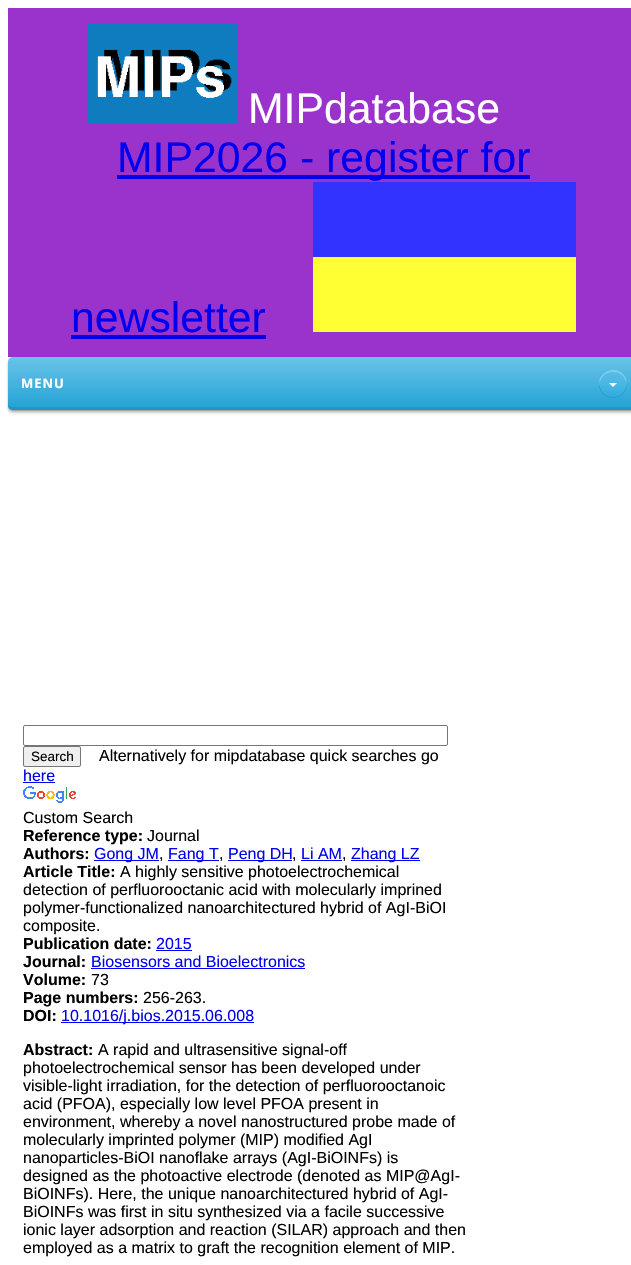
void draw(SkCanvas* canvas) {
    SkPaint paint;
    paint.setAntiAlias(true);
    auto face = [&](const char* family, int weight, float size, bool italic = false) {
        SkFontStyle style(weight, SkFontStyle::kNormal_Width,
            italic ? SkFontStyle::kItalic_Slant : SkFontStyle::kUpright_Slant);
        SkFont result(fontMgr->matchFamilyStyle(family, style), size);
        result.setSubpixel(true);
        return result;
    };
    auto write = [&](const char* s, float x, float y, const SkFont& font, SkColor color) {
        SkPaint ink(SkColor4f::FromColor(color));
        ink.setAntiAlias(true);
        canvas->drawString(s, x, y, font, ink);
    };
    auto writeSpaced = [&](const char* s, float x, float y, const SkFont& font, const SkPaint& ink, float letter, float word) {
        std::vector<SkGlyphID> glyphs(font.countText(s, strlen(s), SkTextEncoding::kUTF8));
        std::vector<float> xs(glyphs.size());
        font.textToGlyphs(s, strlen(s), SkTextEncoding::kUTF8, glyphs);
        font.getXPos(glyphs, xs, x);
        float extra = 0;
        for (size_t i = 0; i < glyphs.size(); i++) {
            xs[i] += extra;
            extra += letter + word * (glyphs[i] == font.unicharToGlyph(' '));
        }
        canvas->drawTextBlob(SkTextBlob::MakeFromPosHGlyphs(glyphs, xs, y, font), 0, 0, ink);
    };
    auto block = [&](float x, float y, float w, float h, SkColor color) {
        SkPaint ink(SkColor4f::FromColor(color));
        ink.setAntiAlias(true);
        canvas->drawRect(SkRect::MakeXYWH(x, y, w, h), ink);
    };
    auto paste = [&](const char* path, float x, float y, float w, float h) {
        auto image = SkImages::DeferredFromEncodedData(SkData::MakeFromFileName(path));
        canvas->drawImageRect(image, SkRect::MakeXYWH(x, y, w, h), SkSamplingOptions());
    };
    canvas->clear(SK_ColorWHITE);
    block(8, 8, 623, 349, SkColorSetRGB(153, 51, 204));
    paste("pic1.png", 88, 23, 149, 100);
    auto kFont1 = face("Liberation Sans", 400, 42.75f);
    write("MIPdatabase", 248, 123, kFont1, SK_ColorWHITE);
    block(117, 175, 413, 4, SkColorSetRGB(0, 0, 238));
    write("MIP2026 - register for", 117, 172, kFont1, SkColorSetRGB(0, 0, 238));
    write("newsletter", 71, 332, kFont1, SkColorSetRGB(0, 0, 238));
    block(71, 335, 195, 4, SkColorSetRGB(0, 0, 238));
    paste("pic2.png", 313, 182, 263, 150);
    canvas->save();
    canvas->clipRect(SkRect::MakeXYWH(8, 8, 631, 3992));
    paint.setColor(SkColorSetARGB(13, 0, 0, 0));
    paint.setMaskFilter(SkMaskFilter::MakeBlur(kNormal_SkBlurStyle, 1));
    canvas->drawRoundRect(SkRect::MakeXYWH(6, 358, 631, 53), 5, 5, paint);
    paint.setMaskFilter(nullptr);
    canvas->restore();
    paint.setMaskFilter(SkMaskFilter::MakeBlur(kNormal_SkBlurStyle, 1));
    canvas->drawRoundRect(SkRect::MakeXYWH(10, 358, 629, 53), 5, 5, paint);
    paint.setMaskFilter(nullptr);
    canvas->save();
    canvas->clipPath(SkPathBuilder(SkPathFillType::kEvenOdd).moveTo(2, 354).lineTo(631, 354).lineTo(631, 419).lineTo(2, 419).close().moveTo(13, 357).lineTo(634, 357).cubicTo(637, 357, 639, 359, 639, 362).lineTo(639, 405).cubicTo(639, 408, 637, 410, 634, 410).lineTo(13, 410).cubicTo(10, 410, 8, 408, 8, 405).lineTo(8, 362).cubicTo(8, 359, 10, 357, 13, 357).close().detach(), true);
    paint.setColor(SkColorSetARGB(43, 0, 0, 0));
    paint.setMaskFilter(SkMaskFilter::MakeBlur(kNormal_SkBlurStyle, 1.5f));
    canvas->drawRoundRect(SkRect::MakeXYWH(8, 360, 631, 53), 5, 5, paint);
    paint.setMaskFilter(nullptr);
    canvas->restore();
    paint.setColor(SkColorSetARGB(15, 0, 0, 0));
    paint.setMaskFilter(SkMaskFilter::MakeBlur(kNormal_SkBlurStyle, 1));
    canvas->drawRoundRect(SkRect::MakeXYWH(8, 359, 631, 53), 5, 5, paint);
    paint.setMaskFilter(nullptr);
    paint.setColor(SkColorSetARGB(26, 0, 0, 0));
    paint.setMaskFilter(SkMaskFilter::MakeBlur(kNormal_SkBlurStyle, 0.5f));
    canvas->drawRoundRect(SkRect::MakeXYWH(8, 358, 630, 53), 5, 5, paint);
    paint.setMaskFilter(nullptr);
    {
        const SkColor colors[] = {SkColorSetRGB(105, 196, 232), SkColorSetRGB(33, 161, 212)};
        const float stops[] = {0, 1};
        const SkPoint ends[] = {{324, 357}, {324, 410}};
        paint.setShader(SkGradientShader::MakeLinear(ends, colors, stops, 2, SkTileMode::kClamp));
        paint.setAlpha(255);
    }
    canvas->drawRoundRect(SkRect::MakeXYWH(8, 357, 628, 53), 5, 5, paint);
    paint.setShader(nullptr);
    paint.setColor(SkColorSetRGB(31, 151, 199));
    canvas->drawPath(SkPathBuilder().moveTo(8, 402).lineTo(8, 405).cubicTo(8, 408, 10, 410, 13, 410).lineTo(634, 410).cubicTo(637, 410, 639, 408, 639, 405).lineTo(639, 402).cubicTo(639, 405, 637, 407, 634, 407).lineTo(13, 407).cubicTo(10, 407, 8, 405, 8, 402).close().detach(), paint);
    auto kFont2 = face("Open Sans", 700, 13);
    paint.setColor(SK_ColorWHITE);
    writeSpaced("MENU", 21, 388, kFont2, paint, 1, 0);
    {
        const SkColor colors[] = {SkColorSetRGB(88, 189, 229), SkColorSetRGB(74, 183, 227), SkColorSetRGB(43, 171, 222), SkColorSetRGB(88, 189, 229), SkColorSetRGB(74, 183, 227)};
        const float stops[] = {0, 0.25f, 0.5f, 0.75f, 1};
        const SkPoint ends[] = {{627, 370}, {627, 426}};
        paint.setShader(SkGradientShader::MakeLinear(ends, colors, stops, 5, SkTileMode::kClamp));
        paint.setAlpha(255);
    }
    canvas->drawCircle(613, 384, 14, paint);
    paint.setShader(nullptr);
    paint.setColor(SkColorSetRGB(127, 204, 235));
    canvas->drawPath(SkPathBuilder().moveTo(613, 372).cubicTo(623, 372, 627.5f, 380.5f, 626.5f, 388).cubicTo(627.5f, 385, 627, 381.5f, 626, 378.5f).cubicTo(619, 362, 594.5f, 371.5f, 599.5f, 388).cubicTo(598.5f, 380.5f, 603, 372, 613, 372).close().detach(), paint);
    paint.setColor(SkColorSetRGB(32, 158, 208));
    canvas->drawPath(SkPathBuilder().moveTo(600, 378.5f).cubicTo(594.5f, 391, 609, 403.5f, 621, 395.5f).cubicTo(623, 394, 625, 392, 626, 389.5f).cubicTo(627.5f, 386, 627.5f, 382, 626, 378.5f).cubicTo(628.5f, 386.5f, 624, 397, 613, 397).cubicTo(602, 397, 597.5f, 386.5f, 600, 378.5f).close().detach(), paint);
    paint.setColor(SK_ColorWHITE);
    canvas->drawPath(SkPathBuilder().moveTo(609, 383).lineTo(617, 383).lineTo(613, 387).close().detach(), paint);
    paint.setStyle(SkPaint::kStroke_Style);
    paint.setStrokeWidth(1);
    paint.setColor(SkColorSetRGB(118, 118, 118));
    canvas->drawRoundRect(SkRect::MakeXYWH(23.5f, 725.5f, 424, 20), 1.5f, 1.5f, paint);
    paint.setStyle(SkPaint::kFill_Style);
    paint.setColor(SkColorSetRGB(239, 239, 239));
    canvas->drawRoundRect(SkRect::MakeXYWH(23.5f, 746.5f, 57, 20), 1.5f, 1.5f, paint);
    paint.setStyle(SkPaint::kStroke_Style);
    paint.setColor(SkColorSetRGB(118, 118, 118));
    canvas->drawRoundRect(SkRect::MakeXYWH(23.5f, 746.5f, 57, 20), 1.5f, 1.5f, paint);
    auto kFont3 = face("Liberation Sans", 400, 13.5f);
    write("Search", 31, 761, kFont3, SK_ColorBLACK);
    auto kFont4 = face("Liberation Sans", 400, 16);
    write("Alternatively for mipdatabase quick searches go", 99, 761, kFont4, SK_ColorBLACK);
    write("here", 23, 781, kFont4, SkColorSetRGB(0, 0, 238));
    block(23, 782, 32, 1, SkColorSetRGB(0, 0, 238));
    paste("pic3.png", 23, 786, 53, 17);
    write("Custom Search", 23, 823, kFont4, SK_ColorBLACK);
    auto kFont5 = face("Liberation Sans", 700, 16);
    write("Reference type:", 23, 841, kFont5, SK_ColorBLACK);
    write("Journal", 147, 841, kFont4, SK_ColorBLACK);
    write("Authors:", 23, 859, kFont5, SK_ColorBLACK);
    block(94, 860, 65, 1, SkColorSetRGB(0, 0, 238));
    write("Gong JM", 94, 859, kFont4, SkColorSetRGB(0, 0, 238));
    write(",", 159, 859, kFont4, SK_ColorBLACK);
    block(168, 860, 51, 1, SkColorSetRGB(0, 0, 238));
    write("Fang T", 168, 859, kFont4, SkColorSetRGB(0, 0, 238));
    write(",", 219, 859, kFont4, SK_ColorBLACK);
    block(228, 860, 64, 1, SkColorSetRGB(0, 0, 238));
    write("Peng DH", 228, 859, kFont4, SkColorSetRGB(0, 0, 238));
    write(",", 292, 859, kFont4, SK_ColorBLACK);
    write("Li AM", 301, 859, kFont4, SkColorSetRGB(0, 0, 238));
    block(301, 860, 41, 1, SkColorSetRGB(0, 0, 238));
    write(",", 342, 859, kFont4, SK_ColorBLACK);
    block(351, 860, 69, 1, SkColorSetRGB(0, 0, 238));
    write("Zhang LZ", 351, 859, kFont4, SkColorSetRGB(0, 0, 238));
    write("Article Title:", 23, 877, kFont5, SK_ColorBLACK);
    write("A highly sensitive photoelectrochemical", 120, 877, kFont4, SK_ColorBLACK);
    write("detection of perfluorooctanic acid with molecularly imprined", 23, 895, kFont4, SK_ColorBLACK);
    write("polymer-functionalized nanoarchitectured hybrid of AgI-BiOI", 23, 913, kFont4, SK_ColorBLACK);
    write("composite.", 23, 931, kFont4, SK_ColorBLACK);
    write("Publication date:", 23, 949, kFont5, SK_ColorBLACK);
    write("2015", 156, 949, kFont4, SkColorSetRGB(0, 0, 238));
    block(156, 950, 36, 1, SkColorSetRGB(0, 0, 238));
    write("Journal:", 23, 967, kFont5, SK_ColorBLACK);
    write("Biosensors and Bioelectronics", 91, 967, kFont4, SkColorSetRGB(0, 0, 238));
    block(91, 968, 214, 1, SkColorSetRGB(0, 0, 238));
    write("Volume:", 23, 985, kFont5, SK_ColorBLACK);
    write("73", 91, 985, kFont4, SK_ColorBLACK);
    write("Page numbers:", 23, 1003, kFont5, SK_ColorBLACK);
    write("256-263.", 143, 1003, kFont4, SK_ColorBLACK);
    write("DOI:", 23, 1021, kFont5, SK_ColorBLACK);
    block(61, 1022, 193, 1, SkColorSetRGB(0, 0, 238));
    write("10.1016/j.bios.2015.06.008", 61, 1021, kFont4, SkColorSetRGB(0, 0, 238));
    write("Abstract:", 23, 1055, kFont5, SK_ColorBLACK);
    write("A rapid and ultrasensitive signal-off", 98, 1055, kFont4, SK_ColorBLACK);
    write("photoelectrochemical sensor has been developed under", 23, 1073, kFont4, SK_ColorBLACK);
    write("visible-light irradiation, for the detection of perfluorooctanoic", 23, 1091, kFont4, SK_ColorBLACK);
    write("acid (PFOA), especially low level PFOA present in", 23, 1109, kFont4, SK_ColorBLACK);
    write("environment, whereby a novel nanostructured probe made of", 23, 1127, kFont4, SK_ColorBLACK);
    write("molecularly imprinted polymer (MIP) modified AgI", 23, 1145, kFont4, SK_ColorBLACK);
    write("nanoparticles-BiOI nanoflake arrays (AgI-BiOINFs) is", 23, 1163, kFont4, SK_ColorBLACK);
    write("designed as the photoactive electrode (denoted as MIP@AgI-", 23, 1181, kFont4, SK_ColorBLACK);
    write("BiOINFs). Here, the unique nanoarchitectured hybrid of AgI-", 23, 1199, kFont4, SK_ColorBLACK);
    write("BiOINFs was first in situ synthesized via a facile successive", 23, 1217, kFont4, SK_ColorBLACK);
    write("ionic layer adsorption and reaction (SILAR) approach and then", 23, 1235, kFont4, SK_ColorBLACK);
    write("employed as a matrix to graft the recognition element of MIP.", 23, 1253, kFont4, SK_ColorBLACK);
}
